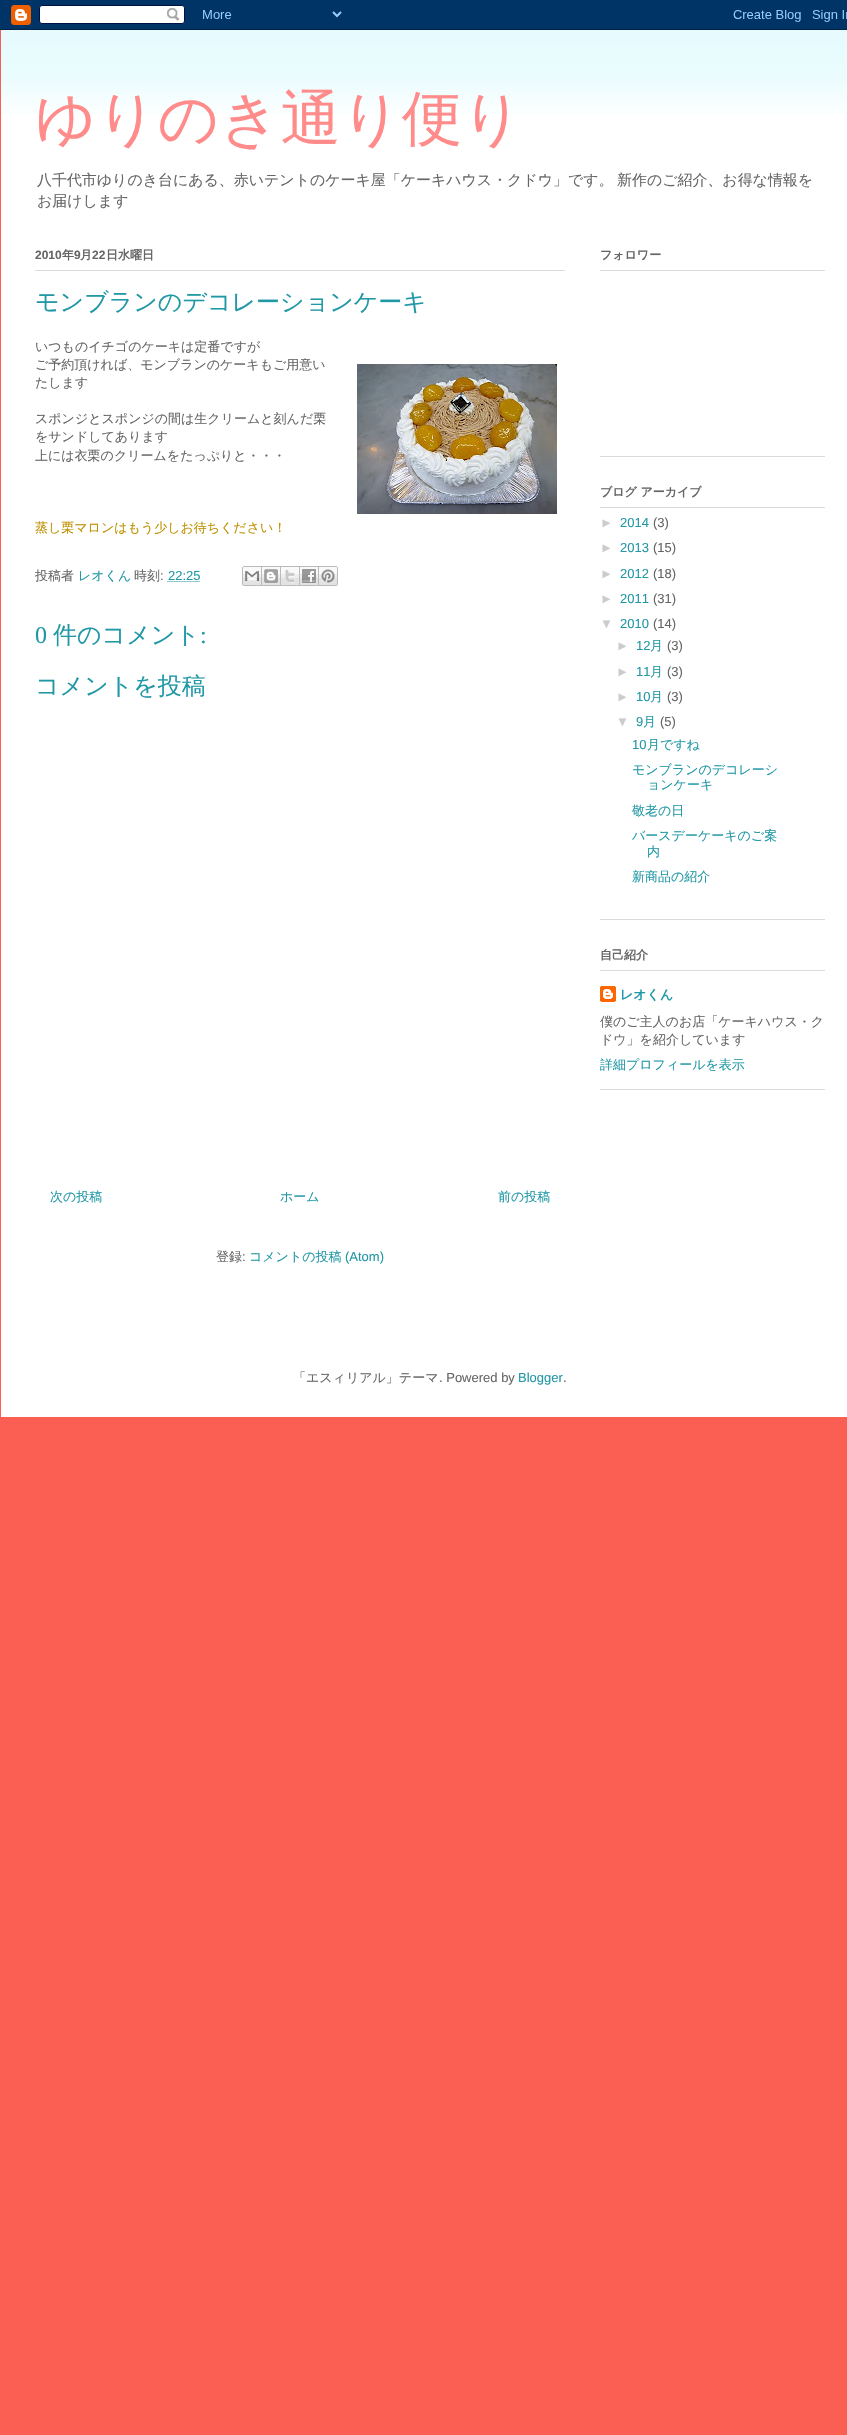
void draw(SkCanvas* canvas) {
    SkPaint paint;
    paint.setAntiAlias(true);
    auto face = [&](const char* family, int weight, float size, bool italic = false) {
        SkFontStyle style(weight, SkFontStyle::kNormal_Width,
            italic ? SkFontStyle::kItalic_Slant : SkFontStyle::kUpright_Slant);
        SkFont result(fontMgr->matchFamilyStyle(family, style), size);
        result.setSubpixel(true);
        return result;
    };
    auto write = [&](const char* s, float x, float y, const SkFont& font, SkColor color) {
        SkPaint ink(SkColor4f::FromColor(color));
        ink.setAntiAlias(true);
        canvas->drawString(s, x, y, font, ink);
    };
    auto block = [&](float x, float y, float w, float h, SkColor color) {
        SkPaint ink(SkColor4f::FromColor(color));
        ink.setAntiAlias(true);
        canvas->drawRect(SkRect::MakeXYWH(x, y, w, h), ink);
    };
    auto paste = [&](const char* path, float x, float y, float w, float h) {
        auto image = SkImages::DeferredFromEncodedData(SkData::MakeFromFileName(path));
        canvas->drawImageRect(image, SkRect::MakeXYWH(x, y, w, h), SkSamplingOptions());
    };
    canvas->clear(SkColorSetRGB(251, 94, 83));
    paste("pic1.png", 0, 0, 847, 30);
    block(1, 30, 846, 1387, SK_ColorWHITE);
    paste("pic2.png", 1, 30, 846, 84);
    auto kFont1 = face("WenQuanYi Zen Hei", 500, 60);
    write("ゆりのき通り便り", 35, 139, kFont1, SkColorSetRGB(255, 139, 139));
    auto kFont2 = face("WenQuanYi Zen Hei", 500, 14.95f);
    write("八千代市ゆりのき台にある、赤いテントのケーキ屋「ケーキハウス・クドウ」です。", 37, 185, kFont2, SkColorSetRGB(102, 102, 102));
    write("新作のご紹介、お得な情報を", 617, 185, kFont2, SkColorSetRGB(102, 102, 102));
    write("お届けします", 37, 206, kFont2, SkColorSetRGB(102, 102, 102));
    block(35, 270, 530, 1, SkColorSetRGB(219, 219, 219));
    auto kFont3 = face("Liberation Sans", 700, 12);
    write("2010", 35, 259, kFont3, SkColorSetRGB(102, 102, 102));
    auto kFont4 = face("WenQuanYi Zen Hei", 700, 12);
    write("年", 62, 259, kFont4, SkColorSetRGB(102, 102, 102));
    write("9", 74, 259, kFont3, SkColorSetRGB(102, 102, 102));
    write("月", 80, 259, kFont4, SkColorSetRGB(102, 102, 102));
    write("22", 92, 259, kFont3, SkColorSetRGB(102, 102, 102));
    write("日水曜日", 106, 259, kFont4, SkColorSetRGB(102, 102, 102));
    auto kFont5 = face("WenQuanYi Zen Hei", 500, 24);
    write("モンブランのデコレーションケーキ", 35, 310, kFont5, SkColorSetRGB(33, 152, 166));
    auto kFont6 = face("WenQuanYi Zen Hei", 500, 13);
    write("いつものイチゴのケーキは定番ですが", 35, 351, kFont6, SkColorSetRGB(102, 102, 102));
    write("ご予約頂ければ、モンブランのケーキもご用意い", 35, 369, kFont6, SkColorSetRGB(102, 102, 102));
    paste("pic3.png", 357, 364, 200, 150);
    write("たします", 35, 387, kFont6, SkColorSetRGB(102, 102, 102));
    write("スポンジとスポンジの間は生クリームと刻んだ栗", 35, 423, kFont6, SkColorSetRGB(102, 102, 102));
    write("をサンドしてあります", 35, 441, kFont6, SkColorSetRGB(102, 102, 102));
    write("上には衣栗のクリームをたっぷりと・・・", 35, 460, kFont6, SkColorSetRGB(102, 102, 102));
    write("蒸し栗マロンはもう少しお待ちください！", 35, 532, kFont6, SkColorSetRGB(191, 144, 0));
    write("投稿者", 35, 580, kFont6, SkColorSetRGB(102, 102, 102));
    write("レオくん", 78, 580, kFont6, SkColorSetRGB(33, 152, 166));
    write("時刻", 134, 580, kFont6, SkColorSetRGB(102, 102, 102));
    auto kFont7 = face("Liberation Sans", 400, 13);
    write(":", 160, 580, kFont7, SkColorSetRGB(102, 102, 102));
    write("22:25", 168, 580, kFont7, SkColorSetRGB(33, 152, 166));
    paint.setStyle(SkPaint::kStroke_Style);
    paint.setStrokeWidth(1);
    paint.setColor(SkColorSetRGB(33, 152, 166));
    paint.setPathEffect(SkDashPathEffect::Make({{1, 1}}, 0));
    canvas->drawPath(SkPathBuilder().moveTo(167.5f, 581.5f).lineTo(200, 581.5f).detach(), paint);
    paint.setPathEffect(nullptr);
    paste("pic4.png", 242, 566, 20, 20);
    paste("pic5.png", 262, 566, 19, 20);
    paste("pic6.png", 281, 566, 19, 20);
    paste("pic7.png", 300, 566, 19, 20);
    paste("pic8.png", 319, 566, 19, 20);
    auto kFont8 = face("Liberation Serif", 400, 24);
    write("0", 35, 643, kFont8, SkColorSetRGB(33, 152, 166));
    write("件のコメント", 53, 643, kFont5, SkColorSetRGB(33, 152, 166));
    write(":", 200, 643, kFont8, SkColorSetRGB(33, 152, 166));
    write("コメントを投稿", 35, 694, kFont5, SkColorSetRGB(33, 152, 166));
    write("次の投稿", 50, 1201, kFont6, SkColorSetRGB(33, 152, 166));
    write("ホーム", 280, 1201, kFont6, SkColorSetRGB(33, 152, 166));
    write("前の投稿", 498, 1201, kFont6, SkColorSetRGB(33, 152, 166));
    write("登録", 216, 1261, kFont6, SkColorSetRGB(102, 102, 102));
    write(":", 242, 1261, kFont7, SkColorSetRGB(102, 102, 102));
    write("コメントの投稿", 249, 1261, kFont6, SkColorSetRGB(33, 152, 166));
    write("(Atom)", 345, 1261, kFont7, SkColorSetRGB(33, 152, 166));
    block(600, 456, 225, 1, SkColorSetRGB(219, 219, 219));
    block(600, 270, 225, 1, SkColorSetRGB(219, 219, 219));
    write("フォロワー", 600, 259, kFont4, SkColorSetRGB(102, 102, 102));
    block(600, 919, 225, 1, SkColorSetRGB(219, 219, 219));
    block(600, 507, 225, 1, SkColorSetRGB(219, 219, 219));
    write("ブログ アーカイブ", 600, 496, kFont4, SkColorSetRGB(102, 102, 102));
    write("►", 600, 527, kFont7, SkColorSetRGB(204, 204, 204));
    write("2014", 620, 527, kFont7, SkColorSetRGB(33, 152, 166));
    write("(3)", 653, 527, kFont7, SkColorSetRGB(102, 102, 102));
    write("►", 600, 552, kFont7, SkColorSetRGB(204, 204, 204));
    write("2013", 620, 552, kFont7, SkColorSetRGB(33, 152, 166));
    write("(15)", 653, 552, kFont7, SkColorSetRGB(102, 102, 102));
    write("►", 600, 578, kFont7, SkColorSetRGB(204, 204, 204));
    write("2012", 620, 578, kFont7, SkColorSetRGB(33, 152, 166));
    write("(18)", 653, 578, kFont7, SkColorSetRGB(102, 102, 102));
    write("►", 600, 603, kFont7, SkColorSetRGB(204, 204, 204));
    write("2011", 620, 603, kFont7, SkColorSetRGB(33, 152, 166));
    write("(31)", 653, 603, kFont7, SkColorSetRGB(102, 102, 102));
    write("▼", 600, 628, kFont7, SkColorSetRGB(204, 204, 204));
    write("2010", 620, 628, kFont7, SkColorSetRGB(33, 152, 166));
    write("(14)", 653, 628, kFont7, SkColorSetRGB(102, 102, 102));
    write("►", 616, 650, kFont7, SkColorSetRGB(204, 204, 204));
    write("12", 636, 650, kFont7, SkColorSetRGB(33, 152, 166));
    write("月", 650, 650, kFont6, SkColorSetRGB(33, 152, 166));
    write("(3)", 667, 650, kFont7, SkColorSetRGB(102, 102, 102));
    write("►", 616, 676, kFont7, SkColorSetRGB(204, 204, 204));
    write("11", 636, 676, kFont7, SkColorSetRGB(33, 152, 166));
    write("月", 650, 676, kFont6, SkColorSetRGB(33, 152, 166));
    write("(3)", 667, 676, kFont7, SkColorSetRGB(102, 102, 102));
    write("►", 616, 701, kFont7, SkColorSetRGB(204, 204, 204));
    write("10", 636, 701, kFont7, SkColorSetRGB(33, 152, 166));
    write("月", 650, 701, kFont6, SkColorSetRGB(33, 152, 166));
    write("(3)", 667, 701, kFont7, SkColorSetRGB(102, 102, 102));
    write("▼", 616, 726, kFont7, SkColorSetRGB(204, 204, 204));
    write("9", 636, 726, kFont7, SkColorSetRGB(33, 152, 166));
    write("月", 643, 726, kFont6, SkColorSetRGB(33, 152, 166));
    write("(5)", 660, 726, kFont7, SkColorSetRGB(102, 102, 102));
    write("10", 632, 749, kFont7, SkColorSetRGB(33, 152, 166));
    write("月ですね", 647, 749, kFont6, SkColorSetRGB(33, 152, 166));
    write("モンブランのデコレーシ", 632, 774, kFont6, SkColorSetRGB(33, 152, 166));
    write("ョンケーキ", 647, 789, kFont6, SkColorSetRGB(33, 152, 166));
    write("敬老の日", 632, 815, kFont6, SkColorSetRGB(33, 152, 166));
    write("バースデーケーキのご案", 632, 840, kFont6, SkColorSetRGB(33, 152, 166));
    write("内", 647, 856, kFont6, SkColorSetRGB(33, 152, 166));
    write("新商品の紹介", 632, 881, kFont6, SkColorSetRGB(33, 152, 166));
    block(600, 1089, 225, 1, SkColorSetRGB(219, 219, 219));
    block(600, 970, 225, 1, SkColorSetRGB(219, 219, 219));
    write("自己紹介", 600, 959, kFont4, SkColorSetRGB(102, 102, 102));
    paste("pic9.png", 600, 986, 16, 16);
    auto kFont9 = face("WenQuanYi Zen Hei", 700, 13);
    write("レオくん", 620, 999, kFont9, SkColorSetRGB(33, 152, 166));
    write("僕のご主人のお店「ケーキハウス・ク", 600, 1026, kFont6, SkColorSetRGB(102, 102, 102));
    write("ドウ」を紹介しています", 600, 1044, kFont6, SkColorSetRGB(102, 102, 102));
    write("詳細プロフィールを表示", 600, 1069, kFont6, SkColorSetRGB(33, 152, 166));
    write("「エスィリアル」テーマ", 293, 1382, kFont6, SkColorSetRGB(102, 102, 102));
    write(". Powered by", 439, 1382, kFont7, SkColorSetRGB(102, 102, 102));
    write("Blogger", 518, 1382, kFont7, SkColorSetRGB(33, 152, 166));
    write(".", 563, 1382, kFont7, SkColorSetRGB(102, 102, 102));
}
